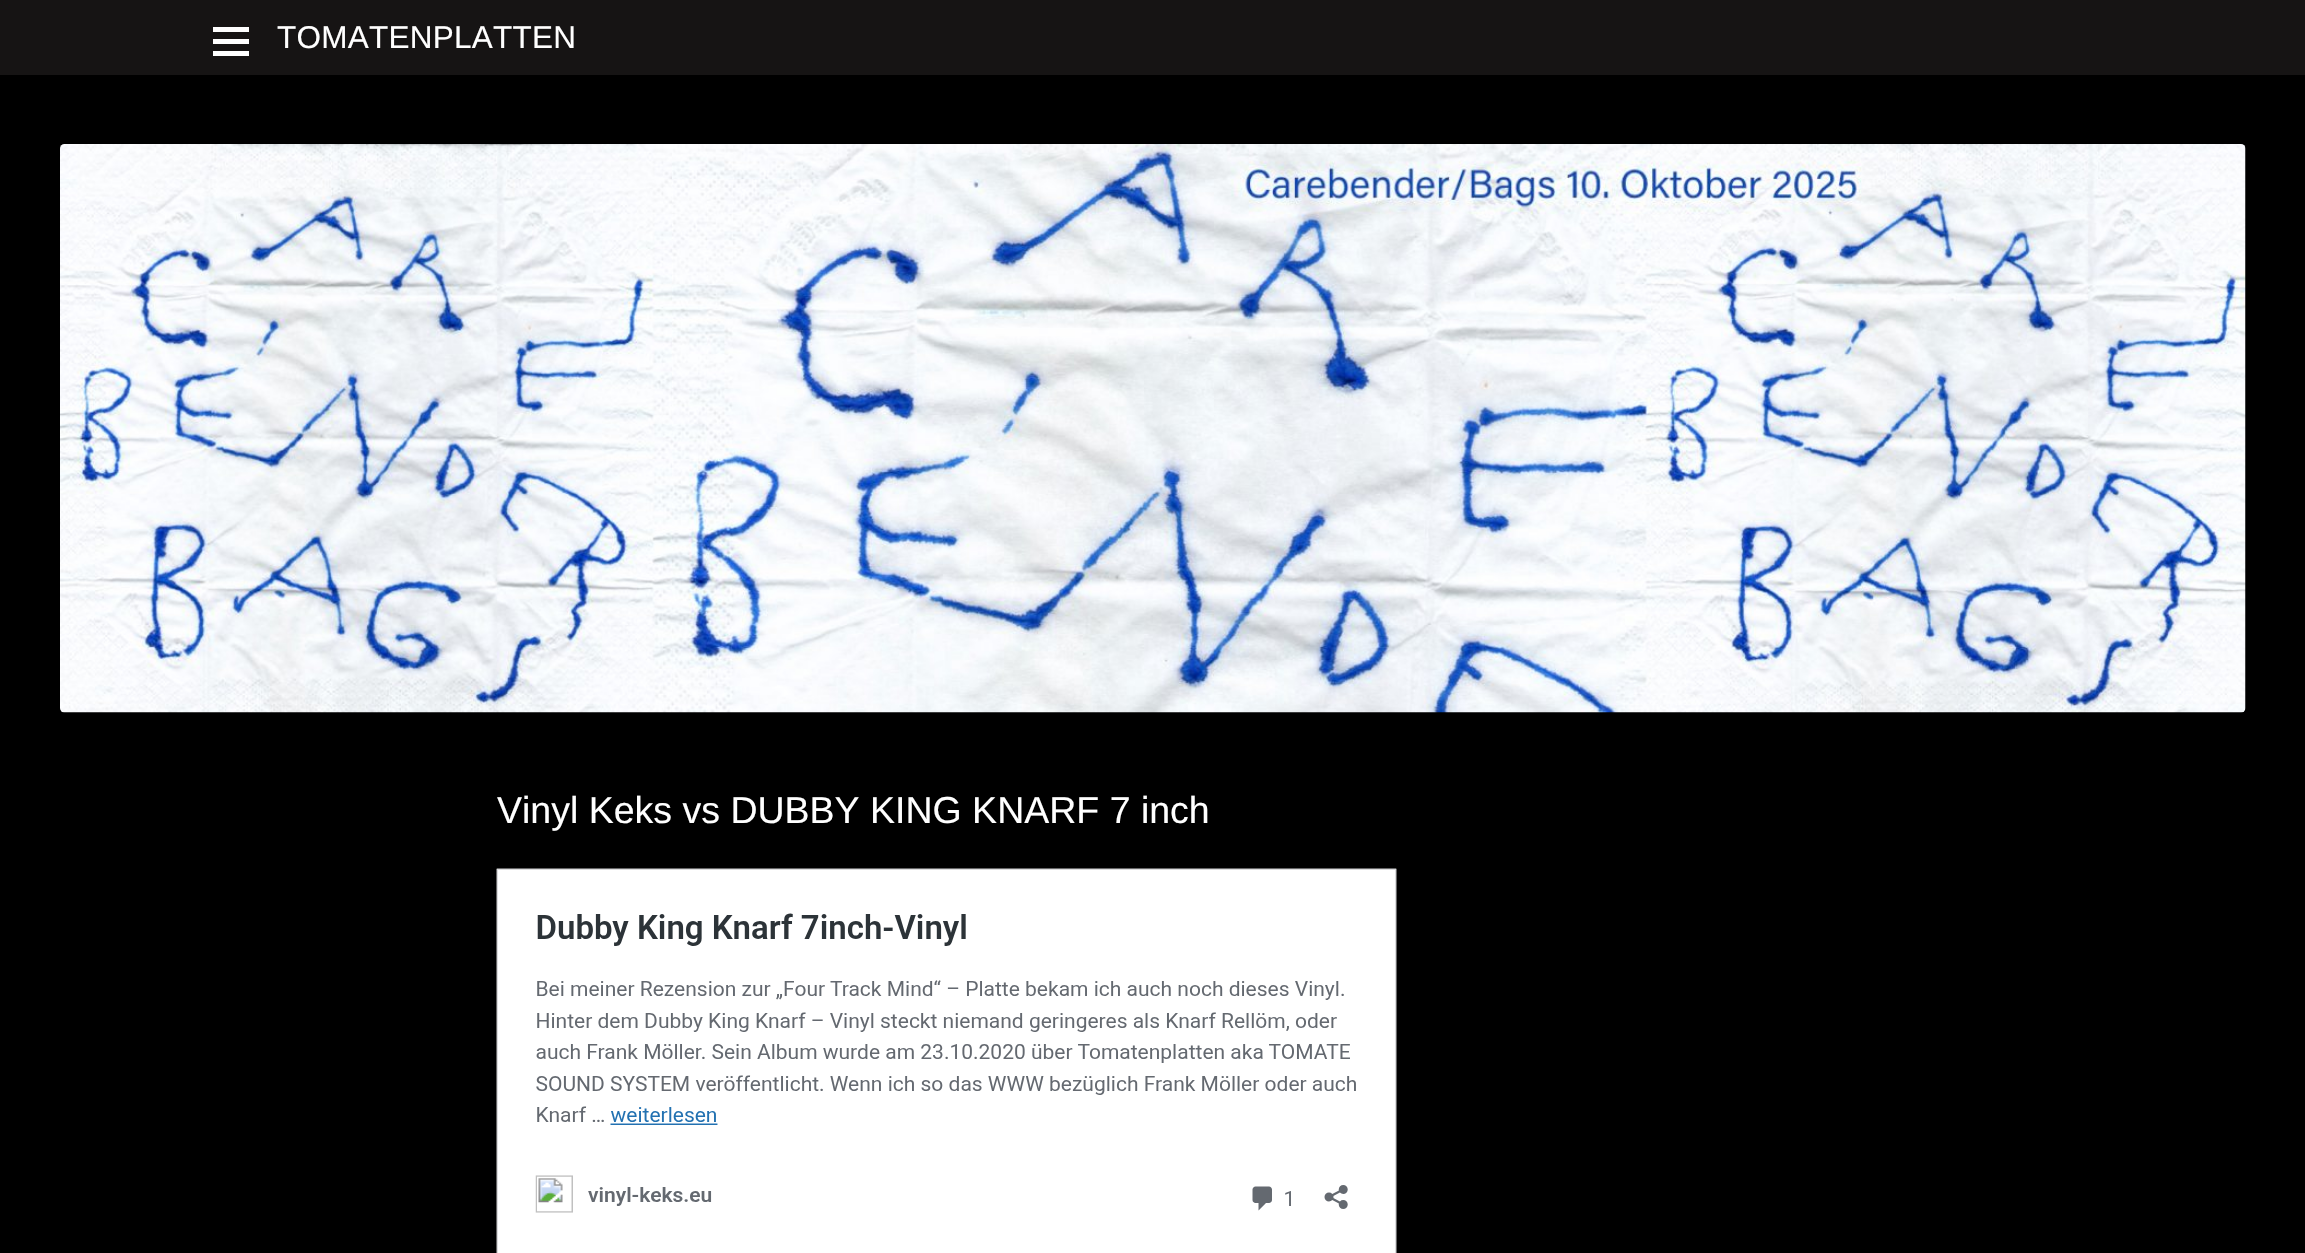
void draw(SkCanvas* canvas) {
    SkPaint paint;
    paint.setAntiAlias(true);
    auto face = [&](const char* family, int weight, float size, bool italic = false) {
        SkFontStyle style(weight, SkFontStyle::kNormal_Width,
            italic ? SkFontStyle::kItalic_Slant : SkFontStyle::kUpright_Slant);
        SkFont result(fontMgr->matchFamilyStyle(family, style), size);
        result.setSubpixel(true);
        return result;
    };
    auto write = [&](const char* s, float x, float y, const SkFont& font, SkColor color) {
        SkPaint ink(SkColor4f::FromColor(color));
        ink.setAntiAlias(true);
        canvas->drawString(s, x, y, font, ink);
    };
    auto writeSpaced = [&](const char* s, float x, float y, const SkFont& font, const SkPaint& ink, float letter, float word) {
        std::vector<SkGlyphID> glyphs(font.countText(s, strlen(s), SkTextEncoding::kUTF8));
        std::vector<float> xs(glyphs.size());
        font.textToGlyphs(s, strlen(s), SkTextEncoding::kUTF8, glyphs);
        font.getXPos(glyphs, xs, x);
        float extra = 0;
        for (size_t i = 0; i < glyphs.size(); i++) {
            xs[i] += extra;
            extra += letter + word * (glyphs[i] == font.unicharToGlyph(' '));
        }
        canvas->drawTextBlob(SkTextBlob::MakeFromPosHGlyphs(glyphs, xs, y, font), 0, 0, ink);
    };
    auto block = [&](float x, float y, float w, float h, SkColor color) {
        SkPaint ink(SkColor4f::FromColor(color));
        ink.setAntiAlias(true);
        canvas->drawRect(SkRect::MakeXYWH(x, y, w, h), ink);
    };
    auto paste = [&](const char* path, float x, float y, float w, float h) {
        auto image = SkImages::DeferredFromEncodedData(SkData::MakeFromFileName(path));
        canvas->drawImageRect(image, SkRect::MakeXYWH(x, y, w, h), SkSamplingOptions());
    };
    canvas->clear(SK_ColorBLACK);
    block(0, 0, 2305, 75, SkColorSetRGB(22, 20, 20));
    block(213, 27, 36, 5, SK_ColorWHITE);
    block(213, 39, 36, 5, SK_ColorWHITE);
    block(213, 51, 36, 5, SK_ColorWHITE);
    auto kFont1 = face("Liberation Sans", 400, 31.5f);
    paint.setColor(SK_ColorWHITE);
    writeSpaced("TOMATENPLATTEN", 277, 48, kFont1, paint, 0.25f, 0);
    paste("pic1.png", 60, 144, 2186, 569);
    auto kFont2 = face("Liberation Sans", 400, 37.5f);
    write("Vinyl Keks vs DUBBY KING KNARF 7 inch", 497, 823, kFont2, SK_ColorWHITE);
    paste("pic2.png", 496, 868, 901, 385);
}
